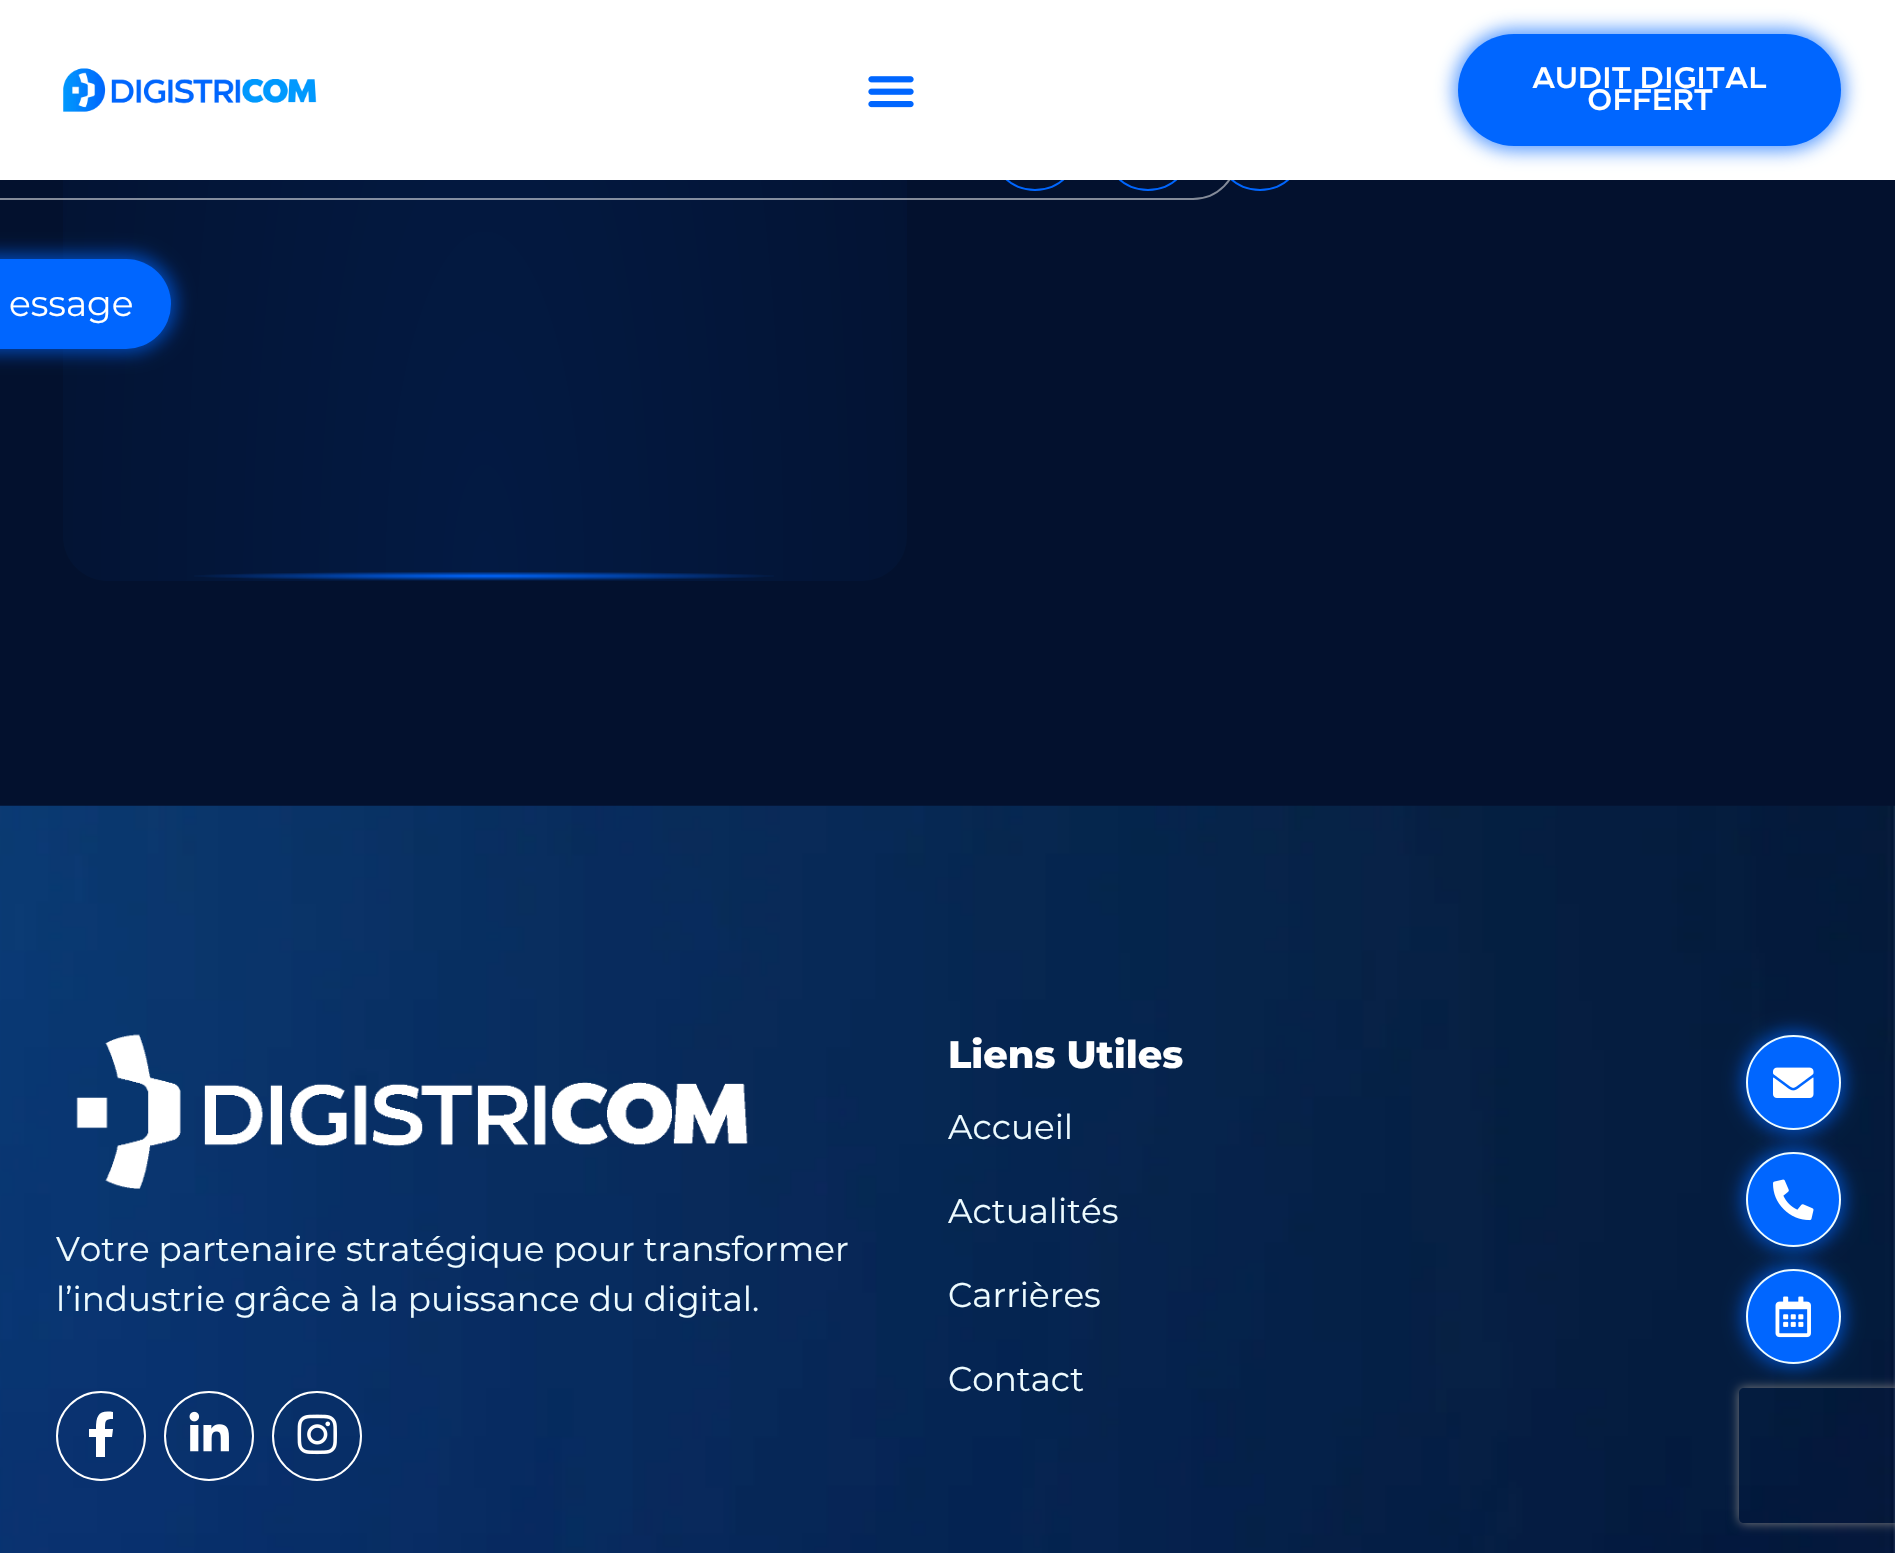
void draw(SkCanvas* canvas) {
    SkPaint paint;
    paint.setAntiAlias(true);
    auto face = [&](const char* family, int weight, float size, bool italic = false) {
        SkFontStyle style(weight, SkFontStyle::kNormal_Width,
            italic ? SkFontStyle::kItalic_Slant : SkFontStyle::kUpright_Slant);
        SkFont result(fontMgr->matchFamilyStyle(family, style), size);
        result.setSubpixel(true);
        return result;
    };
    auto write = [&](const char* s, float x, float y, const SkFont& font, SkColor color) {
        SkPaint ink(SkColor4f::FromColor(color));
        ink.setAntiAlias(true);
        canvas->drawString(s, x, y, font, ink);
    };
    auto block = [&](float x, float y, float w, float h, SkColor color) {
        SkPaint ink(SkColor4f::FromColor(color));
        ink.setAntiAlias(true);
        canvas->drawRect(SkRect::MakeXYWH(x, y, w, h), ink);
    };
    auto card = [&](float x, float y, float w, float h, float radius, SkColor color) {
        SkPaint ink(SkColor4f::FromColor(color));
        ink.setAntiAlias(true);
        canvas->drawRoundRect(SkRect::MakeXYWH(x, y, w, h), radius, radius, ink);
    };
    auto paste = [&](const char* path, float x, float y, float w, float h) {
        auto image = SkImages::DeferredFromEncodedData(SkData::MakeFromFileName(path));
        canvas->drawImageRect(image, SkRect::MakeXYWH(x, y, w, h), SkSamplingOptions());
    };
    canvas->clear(SkColorSetRGB(3, 17, 46));
    {
        const SkColor colors[] = {SkColorSetRGB(2, 60, 151), SkColorSetRGB(3, 17, 46)};
        const float stops[] = {0, 0.65f};
        const SkPoint ends[] = {{485, -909}, {485, 581}};
        paint.setShader(SkGradientShader::MakeLinear(ends, colors, stops, 2, SkTileMode::kClamp));
        paint.setAlpha(255);
    }
    canvas->drawRoundRect(SkRect::MakeXYWH(56, -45, 858, 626), 45, 45, paint);
    {
        const SkColor colors[] = {SkColorSetRGB(3, 26, 67), SkColorSetRGB(3, 17, 46)};
        const float stops[] = {0, 1};
        SkMatrix m = SkMatrix::Translate(485, 581).preScale(597, 2097);
        paint.setShader(SkGradientShader::MakeRadial({0, 0}, 1, colors, stops, 2, SkTileMode::kClamp, 0, &m));
        paint.setAlpha(255);
    }
    canvas->drawRoundRect(SkRect::MakeXYWH(63, -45, 844, 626), 45, 45, paint);
    paint.setStyle(SkPaint::kStroke_Style);
    paint.setStrokeWidth(2);
    paint.setShader(nullptr);
    paint.setColor(SkColorSetARGB(130, 255, 255, 255));
    canvas->drawRoundRect(SkRect::MakeXYWH(-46, -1, 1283, 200), 44, 44, paint);
    paint.setColor(SkColorSetRGB(0, 102, 255));
    canvas->drawCircle(1035, 146, 44, paint);
    canvas->drawCircle(1148, 146, 44, paint);
    canvas->drawCircle(1260, 146, 44, paint);
    block(0, 0, 1895, 180, SK_ColorWHITE);
    paste("pic1.png", 63, 68, 254, 44);
    paste("pic2.png", 868, 76, 46, 32);
    paint.setStyle(SkPaint::kFill_Style);
    paint.setColor(SkColorSetARGB(166, 0, 102, 255));
    paint.setMaskFilter(SkMaskFilter::MakeBlur(kNormal_SkBlurStyle, 9));
    canvas->drawRoundRect(SkRect::MakeXYWH(1454, 29, 391, 122), 61, 61, paint);
    paint.setMaskFilter(nullptr);
    card(1458, 34, 383, 112, 56, SkColorSetRGB(0, 102, 255));
    auto kFont1 = face("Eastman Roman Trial", 600, 29.5f);
    write("AUDIT DIGITAL", 1532, 88, kFont1, SK_ColorWHITE);
    write("OFFERT", 1587, 110, kFont1, SK_ColorWHITE);
    paint.setMaskFilter(SkMaskFilter::MakeBlur(kNormal_SkBlurStyle, 9));
    canvas->drawRoundRect(SkRect::MakeXYWH(-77, 254, 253, 99), 49.5f, 49.5f, paint);
    paint.setMaskFilter(nullptr);
    card(-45, 259, 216, 90, 45, SkColorSetRGB(0, 102, 255));
    auto kFont2 = face("Montserrat", 400, 36);
    write("essage", 9, 316, kFont2, SK_ColorWHITE);
    {
        const SkColor colors[] = {SkColorSetRGB(0, 102, 255), SkColorSetARGB(0, 0, 102, 255)};
        const float stops[] = {0, 0.7f};
        SkMatrix m = SkMatrix::Translate(484, 576).preScale(426, 6.4f);
        paint.setShader(SkGradientShader::MakeRadial({0, 0}, 1, colors, stops, 2, SkTileMode::kClamp, 0, &m));
        paint.setAlpha(255);
    }
    canvas->drawRect(SkRect::MakeXYWH(194, 572, 580, 8), paint);
    paste("pic3.png", 0, 805, 1895, 748);
    paste("pic4.png", 76, 1034, 672, 155);
    auto kFont3 = face("Montserrat", 400, 34.2f);
    write("Votre partenaire stratégique pour transformer", 56, 1261, kFont3, SkColorSetRGB(237, 251, 255));
    write("l’industrie grâce à la puissance du digital.", 56, 1311, kFont3, SkColorSetRGB(237, 251, 255));
    paint.setStyle(SkPaint::kStroke_Style);
    paint.setShader(nullptr);
    paint.setColor(SK_ColorWHITE);
    canvas->drawCircle(101, 1436, 44, paint);
    paint.setStyle(SkPaint::kFill_Style);
    canvas->drawPath(SkPathBuilder().moveTo(112, 1437).lineTo(105, 1437).lineTo(105, 1457).lineTo(96, 1457).lineTo(96, 1437).lineTo(89, 1437).lineTo(89, 1429).lineTo(96, 1429).cubicTo(96, 1415, 99, 1410, 113, 1412).lineTo(113, 1419).cubicTo(105, 1419, 105, 1421, 105, 1429).lineTo(113, 1429).close().detach(), paint);
    paint.setStyle(SkPaint::kStroke_Style);
    canvas->drawCircle(209, 1436, 44, paint);
    paste("pic5.png", 189, 1411, 40, 41);
    canvas->drawCircle(317, 1436, 44, paint);
    paste("pic6.png", 297, 1414, 40, 41);
    auto kFont4 = face("Montserrat", 800, 38.25f);
    write("Liens Utiles", 948, 1068, kFont4, SK_ColorWHITE);
    write("Accueil", 948, 1139, kFont3, SkColorSetRGB(237, 251, 255));
    write("Actualités", 948, 1223, kFont3, SkColorSetRGB(237, 251, 255));
    write("Carrières", 948, 1307, kFont3, SkColorSetRGB(237, 251, 255));
    write("Contact", 948, 1391, kFont3, SkColorSetRGB(237, 251, 255));
    paint.setStyle(SkPaint::kFill_Style);
    paint.setColor(SkColorSetARGB(166, 0, 102, 255));
    paint.setMaskFilter(SkMaskFilter::MakeBlur(kNormal_SkBlurStyle, 9));
    canvas->drawRoundRect(SkRect::MakeXYWH(1742, 1031, 103, 103), 51.5f, 51.5f, paint);
    paint.setMaskFilter(nullptr);
    paint.setColor(SkColorSetRGB(0, 102, 255));
    canvas->drawCircle(1793.5f, 1082.5f, 46.5f, paint);
    paint.setStyle(SkPaint::kStroke_Style);
    paint.setColor(SkColorSetRGB(237, 251, 255));
    canvas->drawCircle(1793.5f, 1082.5f, 46.5f, paint);
    paste("pic7.png", 1773, 1067, 41, 31);
    paint.setStyle(SkPaint::kFill_Style);
    paint.setColor(SkColorSetARGB(166, 0, 102, 255));
    paint.setMaskFilter(SkMaskFilter::MakeBlur(kNormal_SkBlurStyle, 9));
    canvas->drawRoundRect(SkRect::MakeXYWH(1742, 1148, 103, 103), 51.5f, 51.5f, paint);
    paint.setMaskFilter(nullptr);
    paint.setColor(SkColorSetRGB(0, 102, 255));
    canvas->drawCircle(1793.5f, 1199.5f, 46.5f, paint);
    paint.setStyle(SkPaint::kStroke_Style);
    paint.setColor(SkColorSetRGB(237, 251, 255));
    canvas->drawCircle(1793.5f, 1199.5f, 46.5f, paint);
    paste("pic8.png", 1773, 1179, 41, 42);
    paint.setStyle(SkPaint::kFill_Style);
    paint.setColor(SkColorSetARGB(166, 0, 102, 255));
    paint.setMaskFilter(SkMaskFilter::MakeBlur(kNormal_SkBlurStyle, 9));
    canvas->drawRoundRect(SkRect::MakeXYWH(1742, 1265, 103, 103), 51.5f, 51.5f, paint);
    paint.setMaskFilter(nullptr);
    paint.setColor(SkColorSetRGB(0, 102, 255));
    canvas->drawCircle(1793.5f, 1316.5f, 46.5f, paint);
    paint.setStyle(SkPaint::kStroke_Style);
    paint.setColor(SkColorSetRGB(237, 251, 255));
    canvas->drawCircle(1793.5f, 1316.5f, 46.5f, paint);
    paste("pic9.png", 1775, 1296, 36, 42);
    canvas->save();
    canvas->clipPath(SkPathBuilder(SkPathFillType::kEvenOdd).moveTo(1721, 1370).lineTo(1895, 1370).lineTo(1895, 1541).lineTo(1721, 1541).close().moveTo(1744, 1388).lineTo(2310, 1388).cubicTo(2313, 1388, 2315, 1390, 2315, 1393).lineTo(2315, 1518).cubicTo(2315, 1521, 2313, 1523, 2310, 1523).lineTo(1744, 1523).cubicTo(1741, 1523, 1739, 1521, 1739, 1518).lineTo(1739, 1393).cubicTo(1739, 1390, 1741, 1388, 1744, 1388).close().detach(), true);
    paint.setStyle(SkPaint::kFill_Style);
    paint.setColor(SkColorSetRGB(128, 128, 128));
    paint.setMaskFilter(SkMaskFilter::MakeBlur(kNormal_SkBlurStyle, 5.5f));
    canvas->drawRoundRect(SkRect::MakeXYWH(1739, 1388, 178, 135), 5, 5, paint);
    paint.setMaskFilter(nullptr);
    canvas->restore();
}
